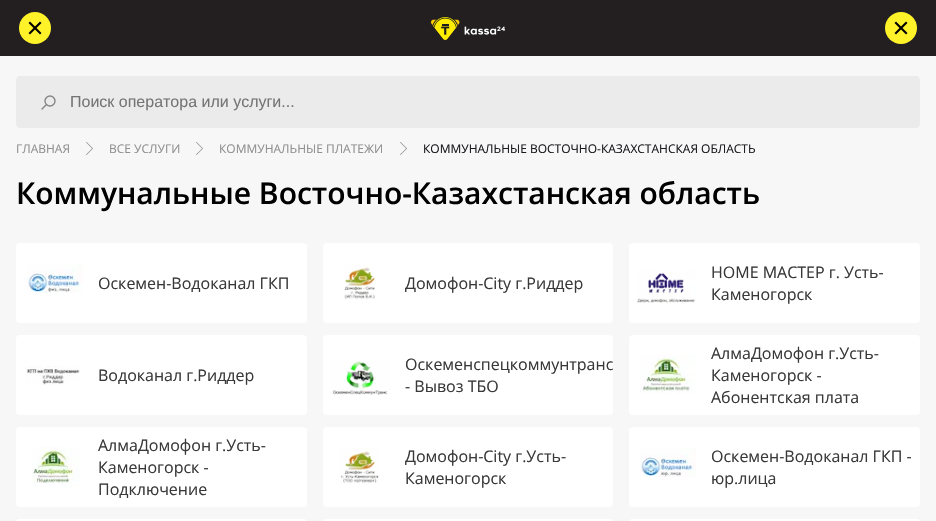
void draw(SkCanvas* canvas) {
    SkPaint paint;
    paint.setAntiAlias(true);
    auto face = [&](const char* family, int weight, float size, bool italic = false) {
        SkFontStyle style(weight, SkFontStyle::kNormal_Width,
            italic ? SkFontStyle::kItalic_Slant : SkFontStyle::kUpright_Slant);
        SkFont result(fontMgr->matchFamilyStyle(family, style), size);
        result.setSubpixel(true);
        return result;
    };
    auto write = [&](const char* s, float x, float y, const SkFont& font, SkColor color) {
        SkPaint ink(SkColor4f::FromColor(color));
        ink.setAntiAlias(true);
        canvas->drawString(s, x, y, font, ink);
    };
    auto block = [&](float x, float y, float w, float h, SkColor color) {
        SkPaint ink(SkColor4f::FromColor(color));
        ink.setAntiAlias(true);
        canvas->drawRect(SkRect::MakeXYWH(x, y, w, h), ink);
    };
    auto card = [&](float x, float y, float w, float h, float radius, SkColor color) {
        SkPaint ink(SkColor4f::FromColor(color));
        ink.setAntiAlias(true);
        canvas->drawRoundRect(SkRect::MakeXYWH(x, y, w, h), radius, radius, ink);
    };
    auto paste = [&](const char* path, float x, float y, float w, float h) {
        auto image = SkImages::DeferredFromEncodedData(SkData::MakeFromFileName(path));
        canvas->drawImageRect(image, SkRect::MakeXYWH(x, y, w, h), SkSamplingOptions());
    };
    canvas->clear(SkColorSetRGB(247, 247, 247));
    block(0, 0, 936, 56, SkColorSetRGB(35, 31, 32));
    paint.setColor(SkColorSetRGB(255, 242, 41));
    canvas->drawCircle(35, 28, 16, paint);
    paint.setColor(SK_ColorBLACK);
    canvas->drawPath(SkPathBuilder().moveTo(40, 21.5f).lineTo(41.5f, 23).lineTo(30, 34.5f).lineTo(28.5f, 33).close().detach(), paint);
    canvas->drawPath(SkPathBuilder().moveTo(30, 21.5f).lineTo(41.5f, 33).lineTo(40, 34.5f).lineTo(28.5f, 23).close().detach(), paint);
    paste("pic1.png", 431, 16, 74, 24);
    paint.setColor(SkColorSetRGB(255, 242, 41));
    canvas->drawCircle(901, 28, 16, paint);
    paint.setColor(SK_ColorBLACK);
    canvas->drawPath(SkPathBuilder().moveTo(906, 21.5f).lineTo(907.5f, 23).lineTo(896, 34.5f).lineTo(894.5f, 33).close().detach(), paint);
    canvas->drawPath(SkPathBuilder().moveTo(896, 21.5f).lineTo(907.5f, 33).lineTo(906, 34.5f).lineTo(894.5f, 23).close().detach(), paint);
    paint.setColor(SkColorSetRGB(235, 235, 235));
    canvas->drawRoundRect(SkRect::MakeXYWH(16.5f, 76.5f, 903, 51), 3.5f, 3.5f, paint);
    paint.setStyle(SkPaint::kStroke_Style);
    paint.setStrokeWidth(1);
    canvas->drawRoundRect(SkRect::MakeXYWH(16.5f, 76.5f, 903, 51), 3.5f, 3.5f, paint);
    paint.setStrokeWidth(1.4f);
    paint.setColor(SkColorSetRGB(133, 133, 133));
    canvas->drawCircle(50, 101, 5, paint);
    paint.setStrokeCap(SkPaint::kRound_Cap);
    canvas->drawPath(SkPathBuilder().moveTo(46, 105).lineTo(42, 109).detach(), paint);
    auto kFont1 = face("Liberation Sans", 400, 16);
    write("Поиск оператора или услуги...", 70, 107, kFont1, SkColorSetRGB(117, 117, 117));
    auto kFont2 = face("Open Sans", 400, 12);
    write("ГЛАВНАЯ", 16, 153, kFont2, SkColorSetRGB(144, 144, 144));
    paste("pic2.png", 86, 142, 7, 13);
    write("ВСЕ УСЛУГИ", 109, 153, kFont2, SkColorSetRGB(144, 144, 144));
    paste("pic2.png", 196, 142, 7, 13);
    write("КОММУНАЛЬНЫЕ ПЛАТЕЖИ", 219, 153, kFont2, SkColorSetRGB(144, 144, 144));
    paste("pic2.png", 400, 142, 7, 13);
    write("КОММУНАЛЬНЫЕ ВОСТОЧНО-КАЗАХСТАНСКАЯ ОБЛАСТЬ", 423, 153, kFont2, SkColorSetRGB(26, 26, 30));
    auto kFont3 = face("Open Sans", 600, 30);
    write("Коммунальные Восточно-Казахстанская область", 16, 204, kFont3, SK_ColorBLACK);
    card(16, 243, 291, 80, 4, SK_ColorWHITE);
    paste("pic3.png", 27, 263, 56, 30);
    auto kFont4 = face("Open Sans", 400, 16);
    write("Оскемен-Водоканал ГКП", 98, 289, kFont4, SkColorSetRGB(57, 57, 57));
    card(323, 243, 290, 80, 4, SK_ColorWHITE);
    paste("pic4.png", 344, 265, 31, 35);
    write("Домофон-City г.Риддер", 405, 289, kFont4, SkColorSetRGB(57, 57, 57));
    card(629, 243, 291, 80, 4, SK_ColorWHITE);
    paste("pic5.png", 637, 270, 59, 33);
    write("НОМЕ МАСТЕР г. Усть-", 711, 278, kFont4, SkColorSetRGB(57, 57, 57));
    write("Каменогорск", 711, 300, kFont4, SkColorSetRGB(57, 57, 57));
    card(16, 335, 291, 80, 4, SK_ColorWHITE);
    paste("pic6.png", 26, 366, 54, 19);
    write("Водоканал г.Риддер", 98, 381, kFont4, SkColorSetRGB(57, 57, 57));
    card(323, 335, 290, 80, 4, SK_ColorWHITE);
    paste("pic7.png", 330, 361, 60, 34);
    write("Оскеменспецкоммунтранс", 405, 370, kFont4, SkColorSetRGB(57, 57, 57));
    write("- Вывоз ТБО", 405, 392, kFont4, SkColorSetRGB(57, 57, 57));
    card(629, 335, 291, 80, 4, SK_ColorWHITE);
    paste("pic8.png", 640, 355, 56, 39);
    write("АлмаДомофон г.Усть-", 711, 359, kFont4, SkColorSetRGB(57, 57, 57));
    write("Каменогорск -", 711, 381, kFont4, SkColorSetRGB(57, 57, 57));
    write("Абонентская плата", 711, 403, kFont4, SkColorSetRGB(57, 57, 57));
    card(16, 427, 291, 80, 4, SK_ColorWHITE);
    paste("pic9.png", 32, 447, 49, 40);
    write("АлмаДомофон г.Усть-", 98, 451, kFont4, SkColorSetRGB(57, 57, 57));
    write("Каменогорск -", 98, 473, kFont4, SkColorSetRGB(57, 57, 57));
    write("Подключение", 98, 495, kFont4, SkColorSetRGB(57, 57, 57));
    card(323, 427, 290, 80, 4, SK_ColorWHITE);
    paste("pic10.png", 340, 448, 39, 36);
    write("Домофон-City г.Усть-", 405, 462, kFont4, SkColorSetRGB(57, 57, 57));
    write("Каменогорск", 405, 484, kFont4, SkColorSetRGB(57, 57, 57));
    card(629, 427, 291, 80, 4, SK_ColorWHITE);
    paste("pic11.png", 640, 447, 56, 30);
    write("Оскемен-Водоканал ГКП -", 711, 462, kFont4, SkColorSetRGB(57, 57, 57));
    write("юр.лица", 711, 484, kFont4, SkColorSetRGB(57, 57, 57));
    card(16, 519, 291, 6, 4, SK_ColorWHITE);
    card(323, 519, 290, 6, 4, SK_ColorWHITE);
    card(629, 519, 291, 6, 4, SK_ColorWHITE);
}
